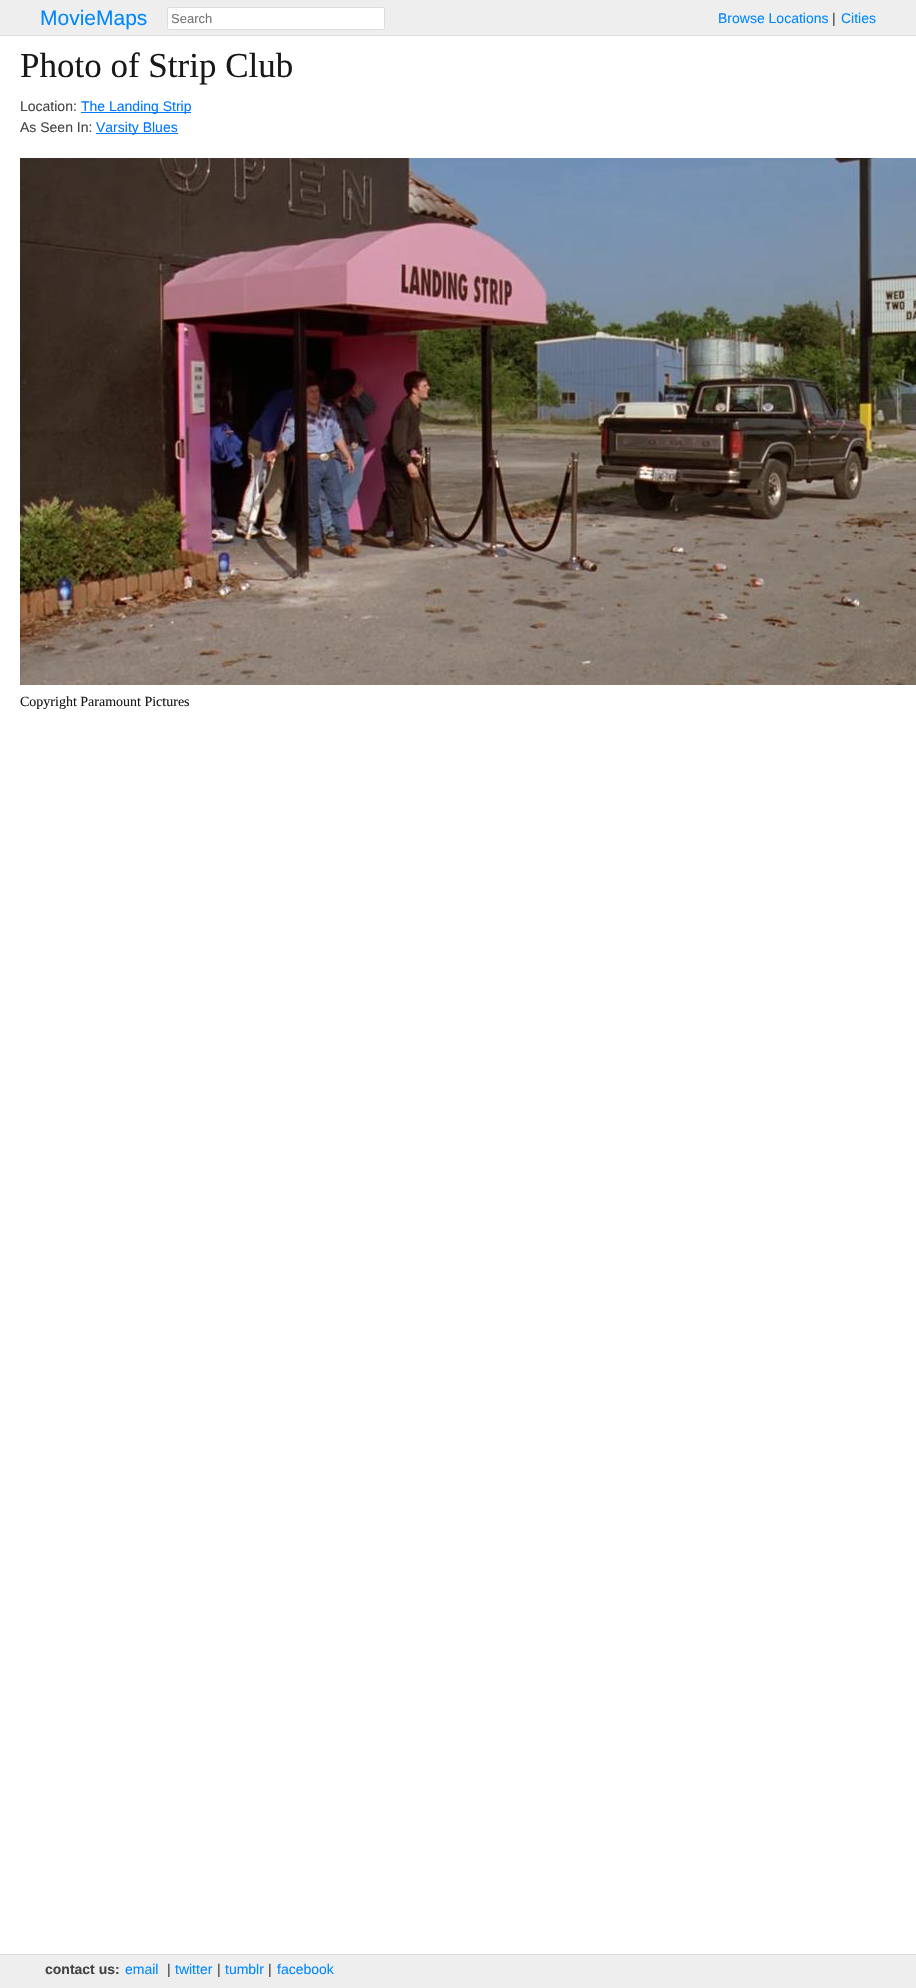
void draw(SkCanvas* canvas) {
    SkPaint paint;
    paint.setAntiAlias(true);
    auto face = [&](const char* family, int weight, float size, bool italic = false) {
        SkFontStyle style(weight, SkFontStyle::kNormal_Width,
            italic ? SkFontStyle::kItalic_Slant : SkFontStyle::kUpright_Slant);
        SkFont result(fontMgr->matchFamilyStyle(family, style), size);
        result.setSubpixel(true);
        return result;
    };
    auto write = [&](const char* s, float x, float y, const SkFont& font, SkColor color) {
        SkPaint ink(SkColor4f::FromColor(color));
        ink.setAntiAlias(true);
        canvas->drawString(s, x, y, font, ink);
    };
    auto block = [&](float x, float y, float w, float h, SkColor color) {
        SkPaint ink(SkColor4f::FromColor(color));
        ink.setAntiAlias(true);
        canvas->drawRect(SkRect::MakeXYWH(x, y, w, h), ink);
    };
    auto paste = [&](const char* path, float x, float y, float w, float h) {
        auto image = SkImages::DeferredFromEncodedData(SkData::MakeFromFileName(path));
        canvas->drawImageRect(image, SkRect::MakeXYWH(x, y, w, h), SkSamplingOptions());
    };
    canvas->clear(SK_ColorWHITE);
    block(0, 0, 916, 35, SkColorSetRGB(238, 238, 238));
    block(0, 35, 916, 1, SkColorSetRGB(221, 221, 221));
    auto kFont1 = face("Liberation Sans", 400, 21);
    write("MovieMaps", 40, 25, kFont1, SkColorSetRGB(0, 136, 255));
    paint.setColor(SK_ColorWHITE);
    canvas->drawRoundRect(SkRect::MakeXYWH(167.5f, 7.5f, 217, 22), 1.5f, 1.5f, paint);
    paint.setStyle(SkPaint::kStroke_Style);
    paint.setStrokeWidth(1);
    paint.setColor(SkColorSetRGB(221, 221, 221));
    canvas->drawRoundRect(SkRect::MakeXYWH(167.5f, 7.5f, 217, 22), 1.5f, 1.5f, paint);
    auto kFont2 = face("Liberation Sans", 400, 13);
    write("Search", 171, 23, kFont2, SkColorSetRGB(117, 117, 117));
    auto kFont3 = face("Liberation Sans", 400, 14);
    write("Browse Locations", 718, 23, kFont3, SkColorSetRGB(0, 136, 255));
    write("|", 832, 23, kFont3, SkColorSetRGB(68, 68, 68));
    write("Cities", 841, 23, kFont3, SkColorSetRGB(0, 136, 255));
    auto kFont4 = face("Liberation Serif", 400, 35);
    write("Photo of Strip Club", 20, 77, kFont4, SkColorSetRGB(24, 24, 24));
    write("Location:", 20, 111, kFont3, SkColorSetRGB(68, 68, 68));
    block(81, 112, 110, 1, SkColorSetRGB(0, 119, 255));
    write("The Landing Strip", 81, 111, kFont3, SkColorSetRGB(0, 119, 255));
    write("As Seen In:", 20, 132, kFont3, SkColorSetRGB(68, 68, 68));
    block(96, 133, 82, 1, SkColorSetRGB(0, 119, 255));
    write("Varsity Blues", 96, 132, kFont3, SkColorSetRGB(0, 119, 255));
    paste("pic1.png", 20, 158, 896, 527);
    auto kFont5 = face("Liberation Serif", 400, 14);
    write("Copyright Paramount Pictures", 20, 706, kFont5, SkColorSetRGB(24, 24, 24));
    block(0, 1955, 916, 33, SkColorSetRGB(238, 238, 238));
    block(0, 1954, 916, 1, SkColorSetRGB(221, 221, 221));
    auto kFont6 = face("Liberation Sans", 700, 14);
    write("contact us:", 45, 1974, kFont6, SkColorSetRGB(68, 68, 68));
    write("e‑mail", 125, 1974, kFont3, SkColorSetRGB(0, 136, 255));
    write("|", 167, 1974, kFont3, SkColorSetRGB(68, 68, 68));
    write("twitter", 175, 1974, kFont3, SkColorSetRGB(0, 136, 255));
    write("|", 217, 1974, kFont3, SkColorSetRGB(68, 68, 68));
    write("tumblr", 225, 1974, kFont3, SkColorSetRGB(0, 136, 255));
    write("|", 268, 1974, kFont3, SkColorSetRGB(68, 68, 68));
    write("facebook", 277, 1974, kFont3, SkColorSetRGB(0, 136, 255));
}
